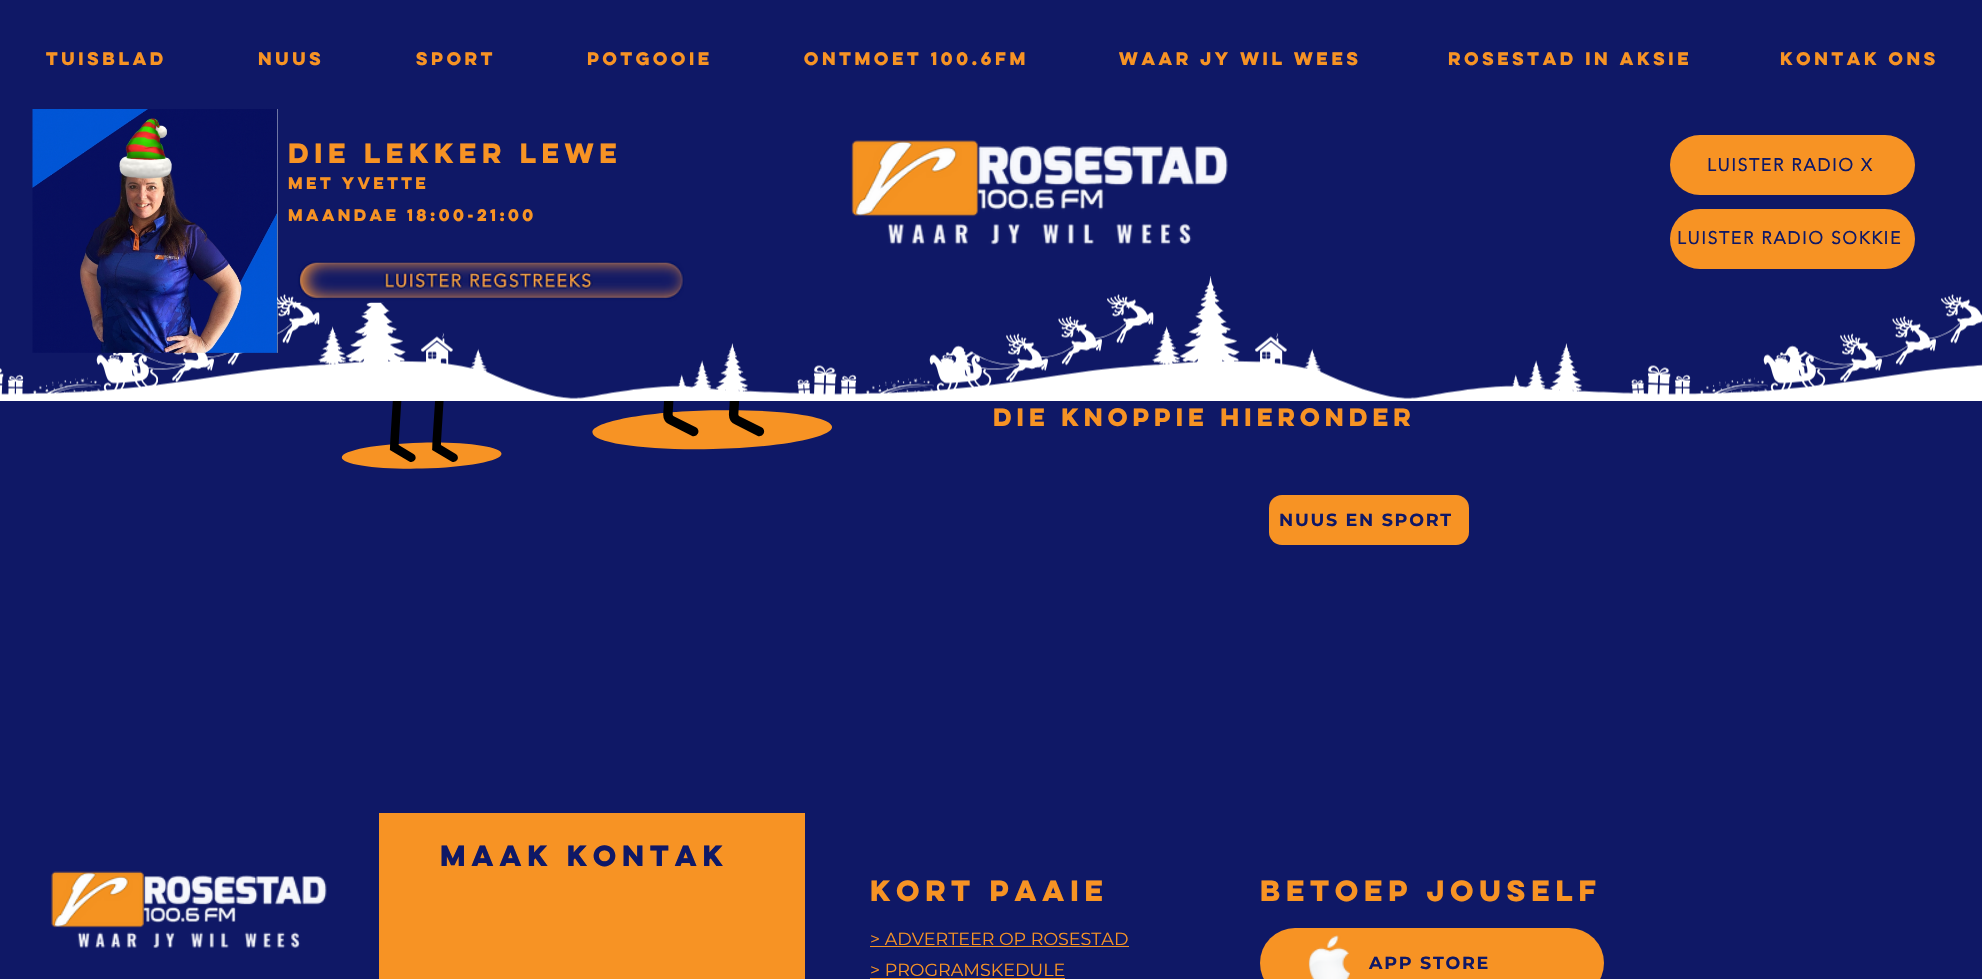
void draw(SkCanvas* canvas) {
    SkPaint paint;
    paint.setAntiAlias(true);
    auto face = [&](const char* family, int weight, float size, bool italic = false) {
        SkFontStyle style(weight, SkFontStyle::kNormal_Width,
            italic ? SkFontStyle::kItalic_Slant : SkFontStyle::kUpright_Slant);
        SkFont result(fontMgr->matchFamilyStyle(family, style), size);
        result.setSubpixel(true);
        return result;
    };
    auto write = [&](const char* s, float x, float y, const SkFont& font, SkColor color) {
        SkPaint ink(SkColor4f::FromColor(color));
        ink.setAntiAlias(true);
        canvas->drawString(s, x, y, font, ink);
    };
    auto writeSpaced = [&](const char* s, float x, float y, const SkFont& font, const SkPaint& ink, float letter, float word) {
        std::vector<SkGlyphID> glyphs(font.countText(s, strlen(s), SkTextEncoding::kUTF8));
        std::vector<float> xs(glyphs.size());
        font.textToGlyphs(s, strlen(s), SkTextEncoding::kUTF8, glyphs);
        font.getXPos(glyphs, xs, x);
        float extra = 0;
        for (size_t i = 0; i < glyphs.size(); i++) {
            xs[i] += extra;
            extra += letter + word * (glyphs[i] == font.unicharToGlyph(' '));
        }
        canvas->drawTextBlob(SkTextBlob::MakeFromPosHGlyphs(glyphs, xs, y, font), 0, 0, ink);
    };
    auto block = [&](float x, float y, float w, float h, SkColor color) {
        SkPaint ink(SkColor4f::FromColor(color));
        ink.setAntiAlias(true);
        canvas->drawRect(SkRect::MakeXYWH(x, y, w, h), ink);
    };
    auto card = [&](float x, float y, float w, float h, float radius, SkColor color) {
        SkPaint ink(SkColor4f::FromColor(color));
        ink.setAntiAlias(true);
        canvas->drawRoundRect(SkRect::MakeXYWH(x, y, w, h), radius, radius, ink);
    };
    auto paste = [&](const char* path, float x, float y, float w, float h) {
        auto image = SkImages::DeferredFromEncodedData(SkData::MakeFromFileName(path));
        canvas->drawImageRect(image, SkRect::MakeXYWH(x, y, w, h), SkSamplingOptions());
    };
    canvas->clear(SkColorSetRGB(15, 24, 102));
    auto kFont1 = face("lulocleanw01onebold", 700, 16.25f);
    write("TUISBLAD", 46, 65, kFont1, SkColorSetRGB(247, 147, 36));
    write("NUUS", 258, 65, kFont1, SkColorSetRGB(247, 147, 36));
    write("SPORT", 416, 65, kFont1, SkColorSetRGB(247, 147, 36));
    write("POTGOOIE", 587, 65, kFont1, SkColorSetRGB(247, 147, 36));
    write("ONTMOET 100.6FM", 804, 65, kFont1, SkColorSetRGB(247, 147, 36));
    write("WAAR JY WIL WEES", 1119, 65, kFont1, SkColorSetRGB(247, 147, 36));
    write("ROSESTAD IN AKSIE", 1448, 65, kFont1, SkColorSetRGB(247, 147, 36));
    write("KONTAK ONS", 1780, 65, kFont1, SkColorSetRGB(247, 147, 36));
    paste("pic4.png", 0, 276, 1982, 125);
    paste("pic1.png", 32, 109, 246, 244);
    auto kFont2 = face("lulocleanw01onebold", 700, 25);
    write("Die Lekker Lewe", 288, 163, kFont2, SkColorSetRGB(247, 147, 36));
    paste("pic2.png", 851, 140, 377, 105);
    auto kFont3 = face("lulocleanw01onebold", 700, 15);
    write("met Yvette", 288, 189, kFont3, SkColorSetRGB(247, 147, 36));
    card(1670, 135, 245, 60, 30, SkColorSetRGB(247, 147, 36));
    auto kFont4 = face("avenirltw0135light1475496", 700, 17.5f);
    paint.setColor(SkColorSetRGB(15, 24, 102));
    writeSpaced("LUISTER RADIO X", 1707, 171, kFont4, paint, 1.75f, 0);
    card(1670, 209, 245, 60, 30, SkColorSetRGB(247, 147, 36));
    writeSpaced("LUISTER RADIO SOKKIE", 1677, 244, kFont4, paint, 1.75f, 0);
    write("Maandae 18:00-21:00", 288, 221, kFont3, SkColorSetRGB(247, 147, 36));
    paste("pic3.png", 296, 261, 388, 42);
    paste("pic5.png", 341, 401, 491, 68);
    auto kFont5 = face("lulocleanw01onebold", 700, 22.5f);
    write("die knoppie hieronder", 993, 426, kFont5, SkColorSetRGB(247, 147, 36));
    card(1269, 495, 200, 50, 13, SkColorSetRGB(247, 147, 36));
    auto kFont6 = face("Montserrat", 700, 17.5f);
    writeSpaced("NUUS EN SPORT", 1279, 526, kFont6, paint, 1.75f, 0);
    block(379, 813, 426, 166, SkColorSetRGB(247, 147, 36));
    auto kFont7 = face("lulocleanw01onebold", 700, 26.25f);
    write("Maak Kontak", 440, 866, kFont7, SkColorSetRGB(15, 24, 102));
    paste("pic6.png", 51, 871, 276, 77);
    write("KORT PAAIE", 870, 901, kFont7, SkColorSetRGB(247, 147, 36));
    auto kFont8 = face("Montserrat", 400, 17.5f);
    write("> ADVERTEER OP ROSESTAD", 870, 945, kFont8, SkColorSetRGB(247, 147, 36));
    block(870, 946, 259, 1, SkColorSetRGB(247, 147, 36));
    write("> PROGRAMSKEDULE", 870, 976, kFont8, SkColorSetRGB(247, 147, 36));
    block(870, 978, 195, 1, SkColorSetRGB(247, 147, 36));
    write("betoep jouself", 1260, 901, kFont7, SkColorSetRGB(247, 147, 36));
    card(1260, 928, 344, 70, 35, SkColorSetRGB(247, 147, 36));
    paste("pic7.png", 1308, 935, 42, 44);
    writeSpaced("APP STORE", 1369, 969, kFont6, paint, 1.75f, 0);
}
